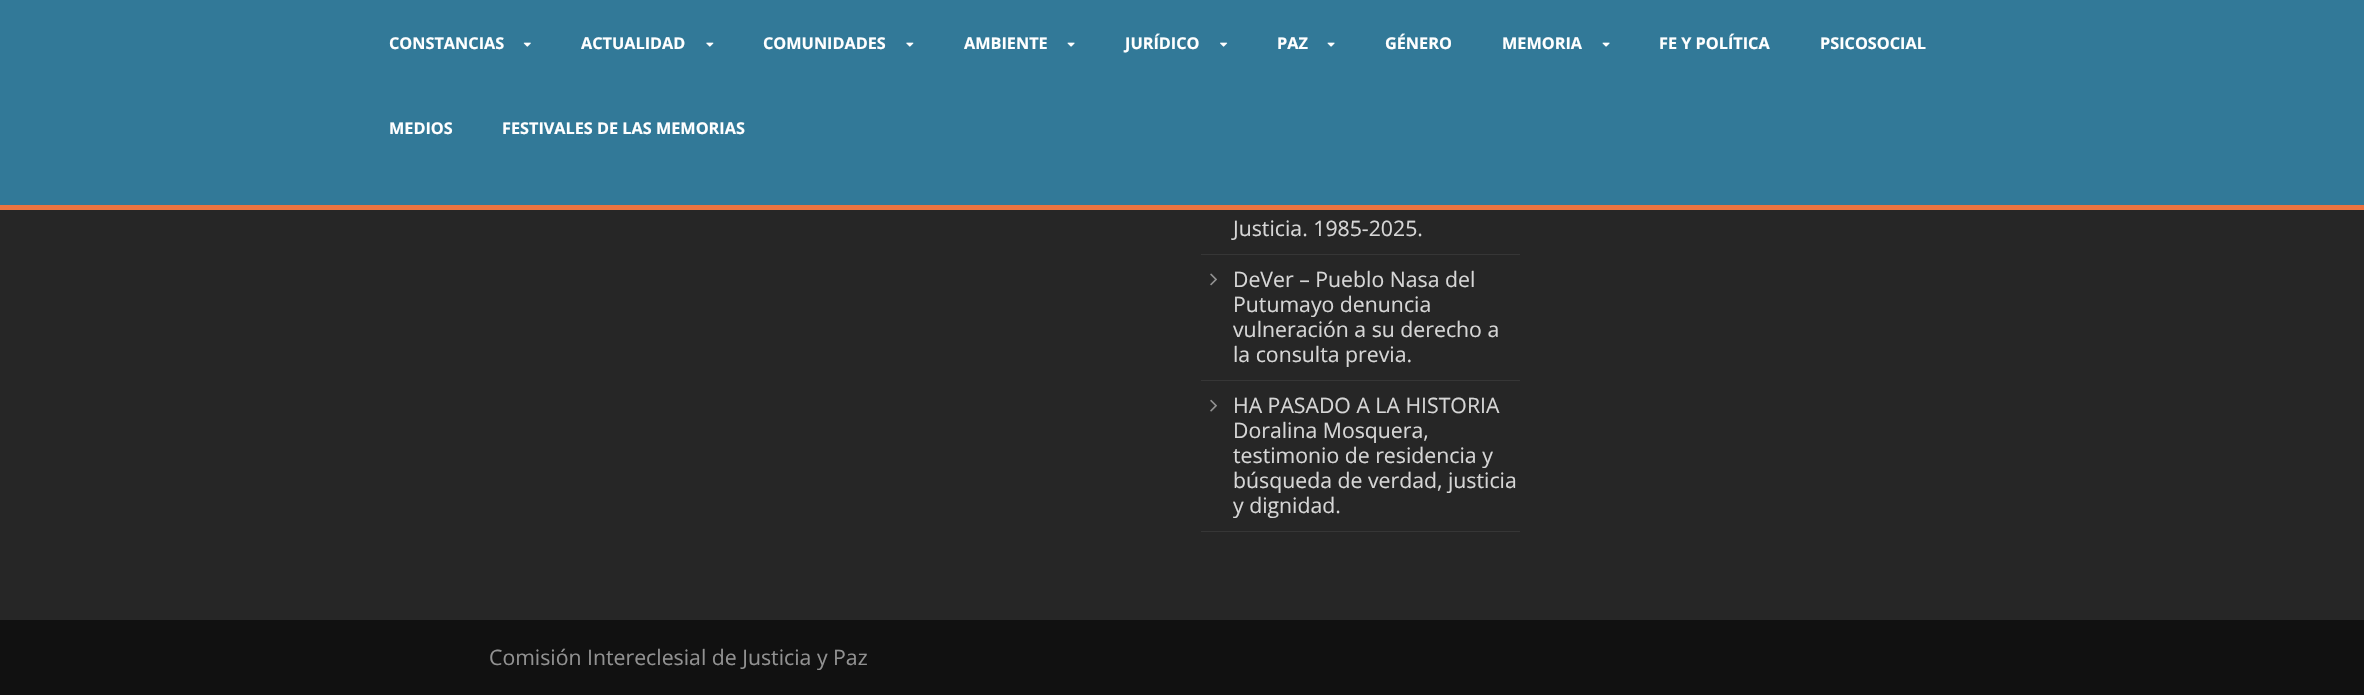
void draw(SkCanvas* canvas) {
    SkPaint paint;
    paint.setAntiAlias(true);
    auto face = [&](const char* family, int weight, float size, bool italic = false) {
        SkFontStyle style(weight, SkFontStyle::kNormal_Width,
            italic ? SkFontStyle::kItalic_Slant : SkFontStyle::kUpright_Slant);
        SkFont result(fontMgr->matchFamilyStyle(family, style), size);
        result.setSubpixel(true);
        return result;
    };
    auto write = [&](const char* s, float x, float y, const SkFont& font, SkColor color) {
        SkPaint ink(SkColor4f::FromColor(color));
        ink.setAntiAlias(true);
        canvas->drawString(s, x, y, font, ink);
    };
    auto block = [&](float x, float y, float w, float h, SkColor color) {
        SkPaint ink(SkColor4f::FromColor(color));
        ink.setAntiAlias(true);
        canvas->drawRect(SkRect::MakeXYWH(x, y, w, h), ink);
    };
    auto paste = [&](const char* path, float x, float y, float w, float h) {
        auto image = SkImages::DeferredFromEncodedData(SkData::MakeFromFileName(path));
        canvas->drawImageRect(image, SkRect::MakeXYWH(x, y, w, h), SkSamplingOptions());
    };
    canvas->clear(SkColorSetRGB(38, 38, 38));
    block(0, 0, 2364, 205, SkColorSetRGB(50, 121, 152));
    block(0, 205, 2364, 5, SkColorSetRGB(236, 116, 64));
    auto kFont1 = face("Open Sans", 700, 16.25f);
    write("CONSTANCIAS", 389, 49, kFont1, SK_ColorWHITE);
    paste("pic1.png", 523, 42, 8, 5);
    write("ACTUALIDAD", 581, 49, kFont1, SK_ColorWHITE);
    paste("pic2.png", 706, 42, 8, 5);
    write("COMUNIDADES", 763, 49, kFont1, SK_ColorWHITE);
    paste("pic2.png", 906, 42, 8, 5);
    write("AMBIENTE", 964, 49, kFont1, SK_ColorWHITE);
    paste("pic3.png", 1067, 42, 8, 5);
    write("JURÍDICO", 1125, 49, kFont1, SK_ColorWHITE);
    paste("pic4.png", 1220, 42, 8, 5);
    write("PAZ", 1277, 49, kFont1, SK_ColorWHITE);
    paste("pic3.png", 1327, 42, 8, 5);
    write("GÉNERO", 1385, 49, kFont1, SK_ColorWHITE);
    write("MEMORIA", 1502, 49, kFont1, SK_ColorWHITE);
    paste("pic3.png", 1602, 42, 8, 5);
    write("FE Y POLÍTICA", 1659, 49, kFont1, SK_ColorWHITE);
    write("PSICOSOCIAL", 1820, 49, kFont1, SK_ColorWHITE);
    write("MEDIOS", 389, 134, kFont1, SK_ColorWHITE);
    write("FESTIVALES DE LAS MEMORIAS", 502, 134, kFont1, SK_ColorWHITE);
    block(1201, 254, 319, 1, SkColorSetRGB(54, 54, 54));
    auto kFont2 = face("Open Sans", 400, 21.25f);
    write("Justicia. 1985-2025.", 1233, 236, kFont2, SkColorSetRGB(214, 214, 214));
    block(1201, 380, 319, 1, SkColorSetRGB(54, 54, 54));
    paste("pic5.png", 1210, 273, 7, 13);
    write("DeVer – Pueblo Nasa del", 1233, 287, kFont2, SkColorSetRGB(214, 214, 214));
    write("Putumayo denuncia", 1233, 312, kFont2, SkColorSetRGB(214, 214, 214));
    write("vulneración a su derecho a", 1233, 337, kFont2, SkColorSetRGB(214, 214, 214));
    write("la consulta previa.", 1233, 362, kFont2, SkColorSetRGB(214, 214, 214));
    block(1201, 531, 319, 1, SkColorSetRGB(54, 54, 54));
    paste("pic6.png", 1210, 399, 7, 13);
    write("HA PASADO A LA HISTORIA", 1233, 413, kFont2, SkColorSetRGB(214, 214, 214));
    write("Doralina Mosquera,", 1233, 438, kFont2, SkColorSetRGB(214, 214, 214));
    write("testimonio de residencia y", 1233, 463, kFont2, SkColorSetRGB(214, 214, 214));
    write("búsqueda de verdad, justicia", 1233, 488, kFont2, SkColorSetRGB(214, 214, 214));
    write("y dignidad.", 1233, 513, kFont2, SkColorSetRGB(214, 214, 214));
    block(0, 620, 2364, 75, SkColorSetRGB(17, 17, 17));
    write("Comisión Intereclesial de Justicia y Paz", 489, 665, kFont2, SkColorSetRGB(145, 145, 145));
}
